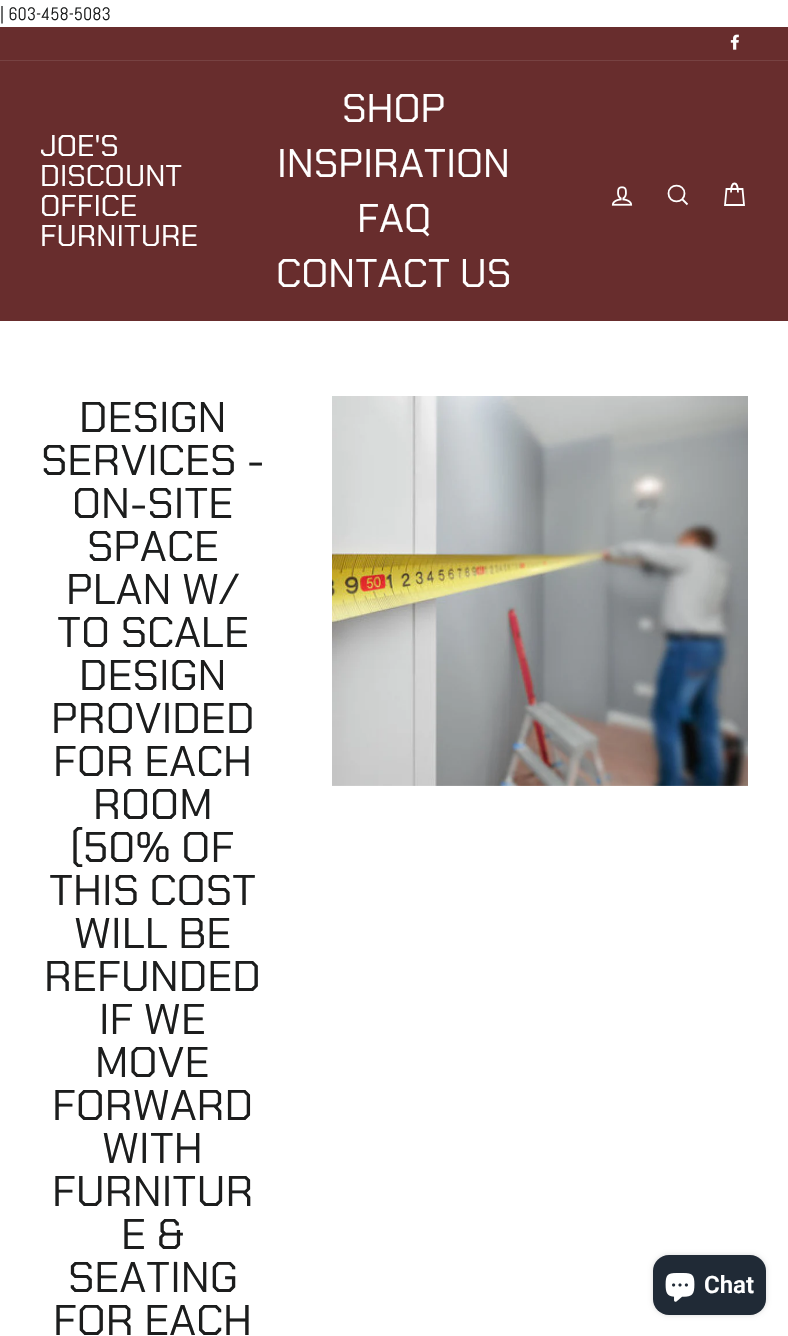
void draw(SkCanvas* canvas) {
    SkPaint paint;
    paint.setAntiAlias(true);
    auto face = [&](const char* family, int weight, float size, bool italic = false) {
        SkFontStyle style(weight, SkFontStyle::kNormal_Width,
            italic ? SkFontStyle::kItalic_Slant : SkFontStyle::kUpright_Slant);
        SkFont result(fontMgr->matchFamilyStyle(family, style), size);
        result.setSubpixel(true);
        return result;
    };
    auto write = [&](const char* s, float x, float y, const SkFont& font, SkColor color) {
        SkPaint ink(SkColor4f::FromColor(color));
        ink.setAntiAlias(true);
        canvas->drawString(s, x, y, font, ink);
    };
    auto block = [&](float x, float y, float w, float h, SkColor color) {
        SkPaint ink(SkColor4f::FromColor(color));
        ink.setAntiAlias(true);
        canvas->drawRect(SkRect::MakeXYWH(x, y, w, h), ink);
    };
    auto card = [&](float x, float y, float w, float h, float radius, SkColor color) {
        SkPaint ink(SkColor4f::FromColor(color));
        ink.setAntiAlias(true);
        canvas->drawRoundRect(SkRect::MakeXYWH(x, y, w, h), radius, radius, ink);
    };
    auto paste = [&](const char* path, float x, float y, float w, float h) {
        auto image = SkImages::DeferredFromEncodedData(SkData::MakeFromFileName(path));
        canvas->drawImageRect(image, SkRect::MakeXYWH(x, y, w, h), SkSamplingOptions());
    };
    canvas->clear(SK_ColorWHITE);
    auto kFont1 = face("Abel", 400, 18);
    write("| 603-458-5083", 0, 20, kFont1, SkColorSetRGB(28, 29, 29));
    block(0, 27, 788, 33, SkColorSetRGB(104, 45, 45));
    paste("pic1.png", 730, 34, 9, 16);
    block(0, 61, 788, 260, SkColorSetRGB(104, 45, 45));
    block(0, 60, 788, 1, SkColorSetRGB(119, 66, 66));
    auto kFont2 = face("Chakra Petch", 400, 30);
    write("JOE'S", 40, 156, kFont2, SK_ColorWHITE);
    write("DISCOUNT", 40, 186, kFont2, SK_ColorWHITE);
    write("OFFICE", 40, 216, kFont2, SK_ColorWHITE);
    write("FURNITURE", 40, 246, kFont2, SK_ColorWHITE);
    auto kFont3 = face("Chakra Petch", 400, 40);
    write("SHOP", 342, 122, kFont3, SK_ColorWHITE);
    write("INSPIRATION", 277, 177, kFont3, SK_ColorWHITE);
    write("FAQ", 357, 232, kFont3, SK_ColorWHITE);
    write("CONTACT US", 276, 287, kFont3, SK_ColorWHITE);
    paste("pic2.png", 611, 186, 22, 20);
    paint.setStyle(SkPaint::kStroke_Style);
    paint.setStrokeWidth(1.8f);
    paint.setColor(SK_ColorWHITE);
    canvas->drawPath(SkPathBuilder().moveTo(684.5f, 193.5f).cubicTo(684.5f, 204, 668.5f, 204, 668.5f, 193.5f).cubicTo(668.5f, 183, 684.5f, 183, 684.5f, 193.5f).close().moveTo(687.5f, 204.5f).lineTo(682.5f, 199.5f).detach(), paint);
    canvas->drawPath(SkPathBuilder().moveTo(731, 192.5f).cubicTo(731, 180.5f, 738, 180.5f, 738, 192.5f).moveTo(726.5f, 189).lineTo(742.5f, 189).lineTo(744, 205).lineTo(725, 205).close().detach(), paint);
    auto kFont4 = face("Chakra Petch", 400, 43);
    write("DESIGN", 79, 432, kFont4, SkColorSetRGB(28, 29, 29));
    write("SERVICES -", 41, 475, kFont4, SkColorSetRGB(28, 29, 29));
    write("ON-SITE", 72, 518, kFont4, SkColorSetRGB(28, 29, 29));
    write("SPACE", 87, 561, kFont4, SkColorSetRGB(28, 29, 29));
    write("PLAN W/", 66, 604, kFont4, SkColorSetRGB(28, 29, 29));
    write("TO SCALE", 57, 647, kFont4, SkColorSetRGB(28, 29, 29));
    write("DESIGN", 79, 690, kFont4, SkColorSetRGB(28, 29, 29));
    write("PROVIDED", 51, 733, kFont4, SkColorSetRGB(28, 29, 29));
    write("FOR EACH", 53, 776, kFont4, SkColorSetRGB(28, 29, 29));
    write("ROOM", 93, 819, kFont4, SkColorSetRGB(28, 29, 29));
    write("(50% OF", 70, 862, kFont4, SkColorSetRGB(28, 29, 29));
    write("THIS COST", 49, 905, kFont4, SkColorSetRGB(28, 29, 29));
    write("WILL BE", 74, 948, kFont4, SkColorSetRGB(28, 29, 29));
    write("REFUNDED", 44, 991, kFont4, SkColorSetRGB(28, 29, 29));
    write("IF WE", 99, 1034, kFont4, SkColorSetRGB(28, 29, 29));
    write("MOVE", 95, 1077, kFont4, SkColorSetRGB(28, 29, 29));
    write("FORWARD", 52, 1120, kFont4, SkColorSetRGB(28, 29, 29));
    write("WITH", 102, 1163, kFont4, SkColorSetRGB(28, 29, 29));
    write("FURNITUR", 52, 1206, kFont4, SkColorSetRGB(28, 29, 29));
    write("E &", 121, 1249, kFont4, SkColorSetRGB(28, 29, 29));
    write("SEATING", 68, 1292, kFont4, SkColorSetRGB(28, 29, 29));
    write("FOR EACH", 53, 1335, kFont4, SkColorSetRGB(28, 29, 29));
    paste("pic3.png", 332, 396, 416, 390);
    paint.setStyle(SkPaint::kFill_Style);
    paint.setColor(SkColorSetARGB(38, 0, 0, 0));
    paint.setMaskFilter(SkMaskFilter::MakeBlur(kNormal_SkBlurStyle, 2.5f));
    canvas->drawRoundRect(SkRect::MakeXYWH(653, 1255, 113, 60), 16, 16, paint);
    paint.setMaskFilter(nullptr);
    card(653, 1255, 113, 60, 16, SkColorSetRGB(32, 42, 54));
    paste("pic4.png", 665, 1273, 30, 29);
    auto kFont5 = face("Roboto", 600, 24);
    write("Chat", 704, 1293, kFont5, SK_ColorWHITE);
}
